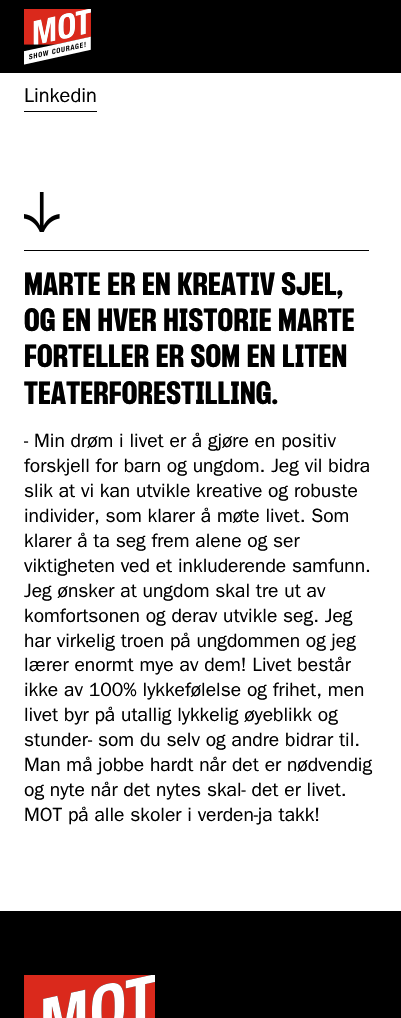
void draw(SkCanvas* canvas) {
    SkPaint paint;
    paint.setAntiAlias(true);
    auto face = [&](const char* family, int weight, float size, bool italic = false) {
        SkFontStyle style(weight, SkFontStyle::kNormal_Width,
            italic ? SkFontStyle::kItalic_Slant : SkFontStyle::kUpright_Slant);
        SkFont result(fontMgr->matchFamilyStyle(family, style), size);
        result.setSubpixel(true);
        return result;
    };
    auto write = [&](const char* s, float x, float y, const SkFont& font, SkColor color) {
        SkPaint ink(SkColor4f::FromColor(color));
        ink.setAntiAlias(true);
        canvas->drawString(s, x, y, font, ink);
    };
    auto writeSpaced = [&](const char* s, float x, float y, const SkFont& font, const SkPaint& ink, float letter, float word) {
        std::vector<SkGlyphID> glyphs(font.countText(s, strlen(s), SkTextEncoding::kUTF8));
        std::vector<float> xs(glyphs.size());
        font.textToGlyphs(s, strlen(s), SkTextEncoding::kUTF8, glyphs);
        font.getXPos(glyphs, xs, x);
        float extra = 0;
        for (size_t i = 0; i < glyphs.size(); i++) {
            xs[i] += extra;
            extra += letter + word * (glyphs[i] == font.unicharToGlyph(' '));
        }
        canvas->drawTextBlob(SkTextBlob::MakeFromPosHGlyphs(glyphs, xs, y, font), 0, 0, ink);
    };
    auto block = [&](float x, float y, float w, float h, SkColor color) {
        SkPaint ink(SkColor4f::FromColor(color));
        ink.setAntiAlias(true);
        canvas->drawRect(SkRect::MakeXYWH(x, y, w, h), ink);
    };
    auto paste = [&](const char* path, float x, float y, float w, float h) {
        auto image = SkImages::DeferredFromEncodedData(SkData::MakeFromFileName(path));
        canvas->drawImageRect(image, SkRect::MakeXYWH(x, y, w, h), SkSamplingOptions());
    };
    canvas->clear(SK_ColorWHITE);
    block(0, 0, 401, 73, SK_ColorBLACK);
    paste("pic1.png", 24, 9, 67, 51);
    paste("pic2.png", 24, 9, 67, 56);
    auto kFont1 = face("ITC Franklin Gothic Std", 400, 20);
    write("Linkedin", 24, 102, kFont1, SK_ColorBLACK);
    block(24, 111, 73, 1, SK_ColorBLACK);
    paste("pic3.png", 24, 192, 36, 40);
    block(24, 250, 345, 1, SK_ColorBLACK);
    auto kFont2 = face("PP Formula", 900, 28);
    paint.setColor(SK_ColorBLACK);
    writeSpaced("MARTE ER EN KREATIV SJEL,", 24, 295, kFont2, paint, 0.25f, 0);
    writeSpaced("OG EN HVER HISTORIE MARTE", 24, 331, kFont2, paint, 0.25f, 0);
    writeSpaced("FORTELLER ER SOM EN LITEN", 24, 367, kFont2, paint, 0.25f, 0);
    writeSpaced("TEATERFORESTILLING.", 24, 404, kFont2, paint, 0.25f, 0);
    auto kFont3 = face("ITC Franklin Gothic Std", 400, 19.25f);
    write("- Min drøm i livet er å gjøre en positiv", 24, 447, kFont3, SK_ColorBLACK);
    write("forskjell for barn og ungdom. Jeg vil bidra", 24, 472, kFont3, SK_ColorBLACK);
    write("slik at vi kan utvikle kreative og robuste", 24, 497, kFont3, SK_ColorBLACK);
    write("individer, som klarer å møte livet. Som", 24, 522, kFont3, SK_ColorBLACK);
    write("klarer å ta seg frem alene og ser", 24, 547, kFont3, SK_ColorBLACK);
    write("viktigheten ved et inkluderende samfunn.", 24, 572, kFont3, SK_ColorBLACK);
    write("Jeg ønsker at ungdom skal tre ut av", 24, 597, kFont3, SK_ColorBLACK);
    write("komfortsonen og derav utvikle seg. Jeg", 24, 622, kFont3, SK_ColorBLACK);
    write("har virkelig troen på ungdommen og jeg", 24, 647, kFont3, SK_ColorBLACK);
    write("lærer enormt mye av dem! Livet består", 24, 671, kFont3, SK_ColorBLACK);
    write("ikke av 100% lykkefølelse og frihet, men", 24, 696, kFont3, SK_ColorBLACK);
    write("livet byr på utallig lykkelig øyeblikk og", 24, 721, kFont3, SK_ColorBLACK);
    write("stunder- som du selv og andre bidrar til.", 24, 746, kFont3, SK_ColorBLACK);
    write("Man må jobbe hardt når det er nødvendig", 24, 771, kFont3, SK_ColorBLACK);
    write("og nyte når det nytes skal- det er livet.", 24, 796, kFont3, SK_ColorBLACK);
    write("MOT på alle skoler i verden-ja takk!", 24, 821, kFont3, SK_ColorBLACK);
    block(0, 911, 401, 107, SK_ColorBLACK);
    paste("pic4.png", 24, 975, 131, 43);
}
